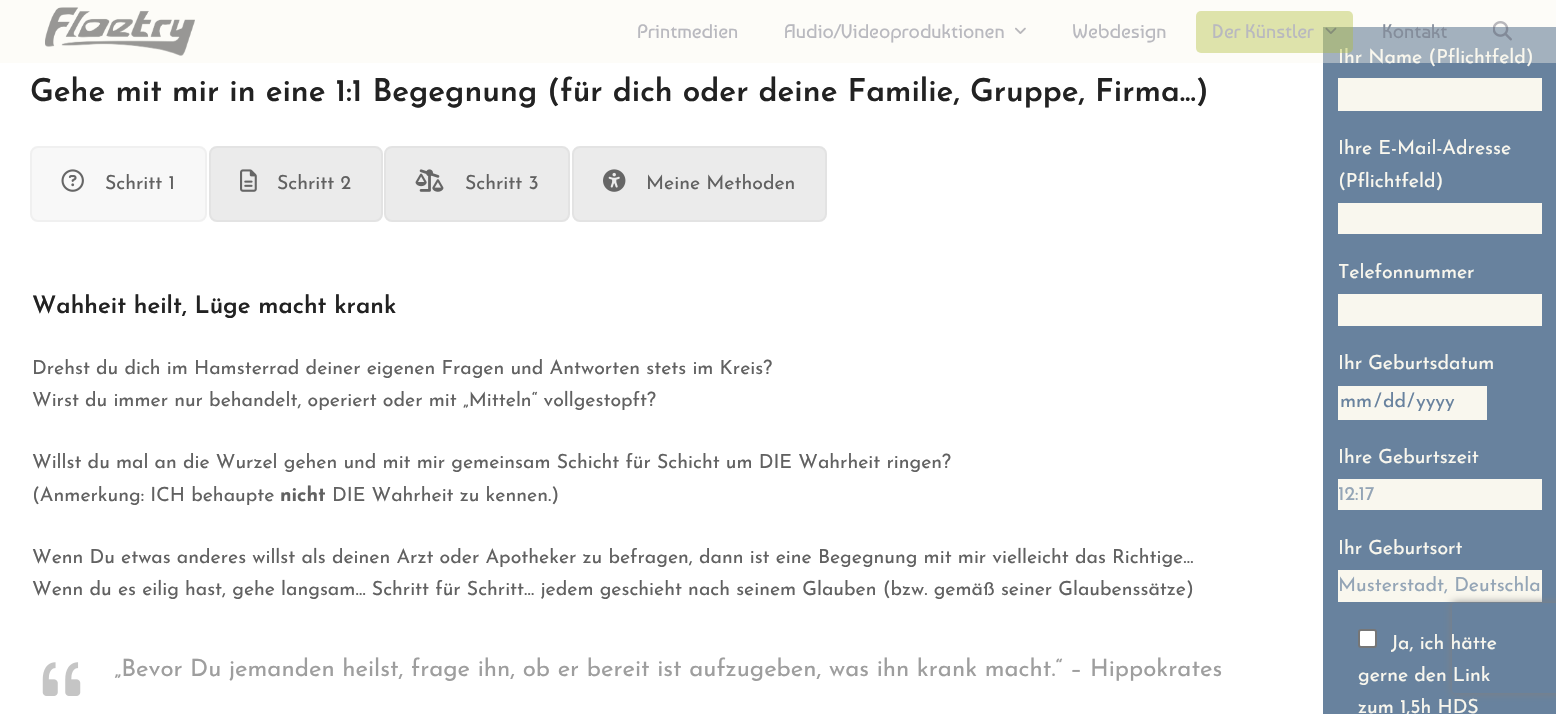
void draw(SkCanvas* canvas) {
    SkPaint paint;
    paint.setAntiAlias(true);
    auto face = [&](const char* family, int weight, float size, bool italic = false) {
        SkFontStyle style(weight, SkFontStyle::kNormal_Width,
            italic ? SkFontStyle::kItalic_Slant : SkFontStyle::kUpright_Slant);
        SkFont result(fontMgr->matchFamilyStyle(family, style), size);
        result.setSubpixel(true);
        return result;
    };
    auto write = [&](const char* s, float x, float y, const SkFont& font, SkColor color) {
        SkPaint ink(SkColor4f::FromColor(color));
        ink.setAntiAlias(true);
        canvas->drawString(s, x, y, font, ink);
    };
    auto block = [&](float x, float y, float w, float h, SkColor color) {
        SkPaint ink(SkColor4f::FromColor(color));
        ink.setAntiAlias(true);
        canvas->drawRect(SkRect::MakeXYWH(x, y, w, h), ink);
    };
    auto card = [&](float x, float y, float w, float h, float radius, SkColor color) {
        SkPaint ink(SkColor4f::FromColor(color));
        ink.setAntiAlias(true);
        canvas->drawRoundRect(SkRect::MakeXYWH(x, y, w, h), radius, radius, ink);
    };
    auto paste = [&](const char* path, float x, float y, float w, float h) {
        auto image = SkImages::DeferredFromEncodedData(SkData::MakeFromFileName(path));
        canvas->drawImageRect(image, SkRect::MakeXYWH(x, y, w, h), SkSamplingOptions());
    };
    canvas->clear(SK_ColorWHITE);
    block(1323, 27, 233, 687, SkColorSetRGB(104, 130, 158));
    auto kFont1 = face("Josefin Sans", 400, 19.5f);
    write("Ihr Name (Pflichtfeld)", 1338, 63, kFont1, SkColorSetRGB(249, 247, 238));
    block(0, 0, 1556, 63, SkColorSetARGB(102, 249, 247, 238));
    paste("pic1.png", 45, 7, 150, 49);
    auto kFont2 = face("Baumans", 400, 19.5f);
    write("Printmedien", 637, 38, kFont2, SkColorSetRGB(185, 185, 191));
    write("Audio/Videoproduktionen", 784, 38, kFont2, SkColorSetRGB(185, 185, 191));
    paste("pic2.png", 1015, 27, 11, 7);
    write("Webdesign", 1072, 38, kFont2, SkColorSetRGB(185, 185, 191));
    card(1196, 11, 157, 42, 5, SkColorSetARGB(102, 174, 189, 56));
    write("Der Künstler", 1212, 38, kFont2, SkColorSetRGB(185, 185, 191));
    paste("pic3.png", 1325, 27, 12, 7);
    write("Kontakt", 1382, 38, kFont2, SkColorSetRGB(132, 141, 155));
    paste("pic4.png", 1493, 21, 19, 20);
    auto kFont3 = face("Josefin Sans", 600, 31.5f);
    write("Gehe mit mir in eine 1:1 Begegnung (für dich oder deine Familie, Gruppe, Firma...)", 30, 101, kFont3, SkColorSetRGB(34, 34, 34));
    paint.setColor(SkColorSetRGB(248, 248, 248));
    canvas->drawRoundRect(SkRect::MakeXYWH(31, 147, 175, 74), 7, 7, paint);
    paint.setStyle(SkPaint::kStroke_Style);
    paint.setStrokeWidth(2);
    paint.setColor(SkColorSetRGB(240, 240, 240));
    canvas->drawRoundRect(SkRect::MakeXYWH(31, 147, 175, 74), 7, 7, paint);
    paste("pic5.png", 61, 169, 23, 23);
    write("Schritt 1", 105, 189, kFont1, SkColorSetRGB(97, 97, 97));
    paint.setStyle(SkPaint::kFill_Style);
    paint.setColor(SkColorSetRGB(235, 235, 235));
    canvas->drawRoundRect(SkRect::MakeXYWH(210, 147, 172, 74), 7, 7, paint);
    paint.setStyle(SkPaint::kStroke_Style);
    paint.setColor(SkColorSetRGB(227, 227, 227));
    canvas->drawRoundRect(SkRect::MakeXYWH(210, 147, 172, 74), 7, 7, paint);
    paste("pic6.png", 240, 169, 17, 23);
    write("Schritt 2", 277, 189, kFont1, SkColorSetRGB(97, 97, 97));
    paint.setStyle(SkPaint::kFill_Style);
    paint.setColor(SkColorSetRGB(235, 235, 235));
    canvas->drawRoundRect(SkRect::MakeXYWH(385, 147, 184, 74), 7, 7, paint);
    paint.setStyle(SkPaint::kStroke_Style);
    paint.setColor(SkColorSetRGB(227, 227, 227));
    canvas->drawRoundRect(SkRect::MakeXYWH(385, 147, 184, 74), 7, 7, paint);
    paste("pic7.png", 415, 169, 29, 23);
    write("Schritt 3", 465, 189, kFont1, SkColorSetRGB(97, 97, 97));
    paint.setStyle(SkPaint::kFill_Style);
    paint.setColor(SkColorSetRGB(235, 235, 235));
    canvas->drawRoundRect(SkRect::MakeXYWH(573, 147, 253, 74), 7, 7, paint);
    paint.setStyle(SkPaint::kStroke_Style);
    paint.setColor(SkColorSetRGB(227, 227, 227));
    canvas->drawRoundRect(SkRect::MakeXYWH(573, 147, 253, 74), 7, 7, paint);
    paste("pic8.png", 603, 169, 23, 23);
    write("Meine Methoden", 646, 189, kFont1, SkColorSetRGB(97, 97, 97));
    auto kFont4 = face("Josefin Sans", 600, 24);
    write("Wahheit heilt, Lüge macht krank", 32, 313, kFont4, SkColorSetRGB(34, 34, 34));
    write("Drehst du dich im Hamsterrad deiner eigenen Fragen und Antworten stets im Kreis?", 32, 374, kFont1, SkColorSetRGB(97, 97, 97));
    write("Wirst du immer nur behandelt, operiert oder mit „Mitteln“ vollgestopft?", 32, 406, kFont1, SkColorSetRGB(97, 97, 97));
    write("Willst du mal an die Wurzel gehen und mit mir gemeinsam Schicht für Schicht um DIE Wahrheit ringen?", 32, 468, kFont1, SkColorSetRGB(97, 97, 97));
    write("(Anmerkung: ICH behaupte", 32, 501, kFont1, SkColorSetRGB(97, 97, 97));
    auto kFont5 = face("Josefin Sans", 700, 19.5f);
    write("nicht", 280, 501, kFont5, SkColorSetRGB(97, 97, 97));
    write("DIE Wahrheit zu kennen.)", 332, 501, kFont1, SkColorSetRGB(97, 97, 97));
    write("Wenn Du etwas anderes willst als deinen Arzt oder Apotheker zu befragen, dann ist eine Begegnung mit mir vielleicht das Richtige…", 32, 563, kFont1, SkColorSetRGB(97, 97, 97));
    write("Wenn du es eilig hast, gehe langsam… Schritt für Schritt… jedem geschieht nach seinem Glauben (bzw. gemäß seiner Glaubenssätze)", 32, 595, kFont1, SkColorSetRGB(97, 97, 97));
    paste("pic9.png", 42, 662, 39, 34);
    auto kFont6 = face("Josefin Sans", 400, 24);
    write("„Bevor Du jemanden heilst, frage ihn, ob er bereit ist aufzugeben, was ihn krank macht.“ – Hippokrates", 114, 676, kFont6, SkColorSetRGB(158, 158, 158));
    block(1338, 78, 204, 33, SkColorSetRGB(249, 247, 238));
    write("Ihre E-Mail-Adresse", 1338, 154, kFont1, SkColorSetRGB(249, 247, 238));
    write("(Pflichtfeld)", 1338, 187, kFont1, SkColorSetRGB(249, 247, 238));
    block(1338, 203, 204, 31, SkColorSetRGB(249, 247, 238));
    write("Telefonnummer", 1338, 278, kFont1, SkColorSetRGB(249, 247, 238));
    block(1338, 294, 204, 32, SkColorSetRGB(249, 247, 238));
    write("Ihr Geburtsdatum", 1338, 369, kFont1, SkColorSetRGB(249, 247, 238));
    block(1338, 386, 149, 34, SkColorSetRGB(249, 247, 238));
    write("mm", 1340, 407, kFont1, SkColorSetRGB(104, 130, 158));
    write("/", 1374, 407, kFont1, SkColorSetRGB(104, 130, 158));
    write("dd", 1383, 407, kFont1, SkColorSetRGB(104, 130, 158));
    write("/", 1407, 407, kFont1, SkColorSetRGB(104, 130, 158));
    write("yyyy", 1416, 407, kFont1, SkColorSetRGB(104, 130, 158));
    write("Ihre Geburtszeit", 1338, 463, kFont1, SkColorSetRGB(249, 247, 238));
    block(1338, 479, 204, 31, SkColorSetRGB(249, 247, 238));
    write("12:17", 1338, 500, kFont1, SkColorSetRGB(148, 165, 182));
    write("Ihr Geburtsort", 1338, 554, kFont1, SkColorSetRGB(249, 247, 238));
    block(1338, 570, 204, 32, SkColorSetRGB(249, 247, 238));
    canvas->save();
    canvas->clipRect(SkRect::MakeXYWH(1338, 576, 204, 20));
    write("Musterstadt, Deutschla", 1338, 591, kFont1, SkColorSetRGB(148, 165, 182));
    canvas->restore();
    paint.setStyle(SkPaint::kFill_Style);
    paint.setColor(SK_ColorWHITE);
    canvas->drawRoundRect(SkRect::MakeXYWH(1359, 630, 17, 17), 2, 2, paint);
    paint.setStyle(SkPaint::kStroke_Style);
    paint.setColor(SkColorSetRGB(118, 118, 118));
    canvas->drawRoundRect(SkRect::MakeXYWH(1359, 630, 17, 17), 2, 2, paint);
    write("Ja, ich hätte", 1391, 649, kFont1, SkColorSetRGB(249, 247, 238));
    write("gerne den Link", 1358, 681, kFont1, SkColorSetRGB(249, 247, 238));
    write("zum 1,5h HDS", 1358, 713, kFont1, SkColorSetRGB(249, 247, 238));
    canvas->save();
    canvas->clipPath(SkPathBuilder(SkPathFillType::kEvenOdd).moveTo(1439, 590).lineTo(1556, 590).lineTo(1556, 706).lineTo(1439, 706).close().moveTo(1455, 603).lineTo(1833, 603).cubicTo(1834.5f, 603, 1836, 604.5f, 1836, 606).lineTo(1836, 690).cubicTo(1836, 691.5f, 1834.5f, 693, 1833, 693).lineTo(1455, 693).cubicTo(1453.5f, 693, 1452, 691.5f, 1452, 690).lineTo(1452, 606).cubicTo(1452, 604.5f, 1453.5f, 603, 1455, 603).close().detach(), true);
    paint.setStyle(SkPaint::kFill_Style);
    paint.setColor(SkColorSetRGB(128, 128, 128));
    paint.setMaskFilter(SkMaskFilter::MakeBlur(kNormal_SkBlurStyle, 4));
    canvas->drawRoundRect(SkRect::MakeXYWH(1452, 603, 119, 90), 3, 3, paint);
    paint.setMaskFilter(nullptr);
    canvas->restore();
}
